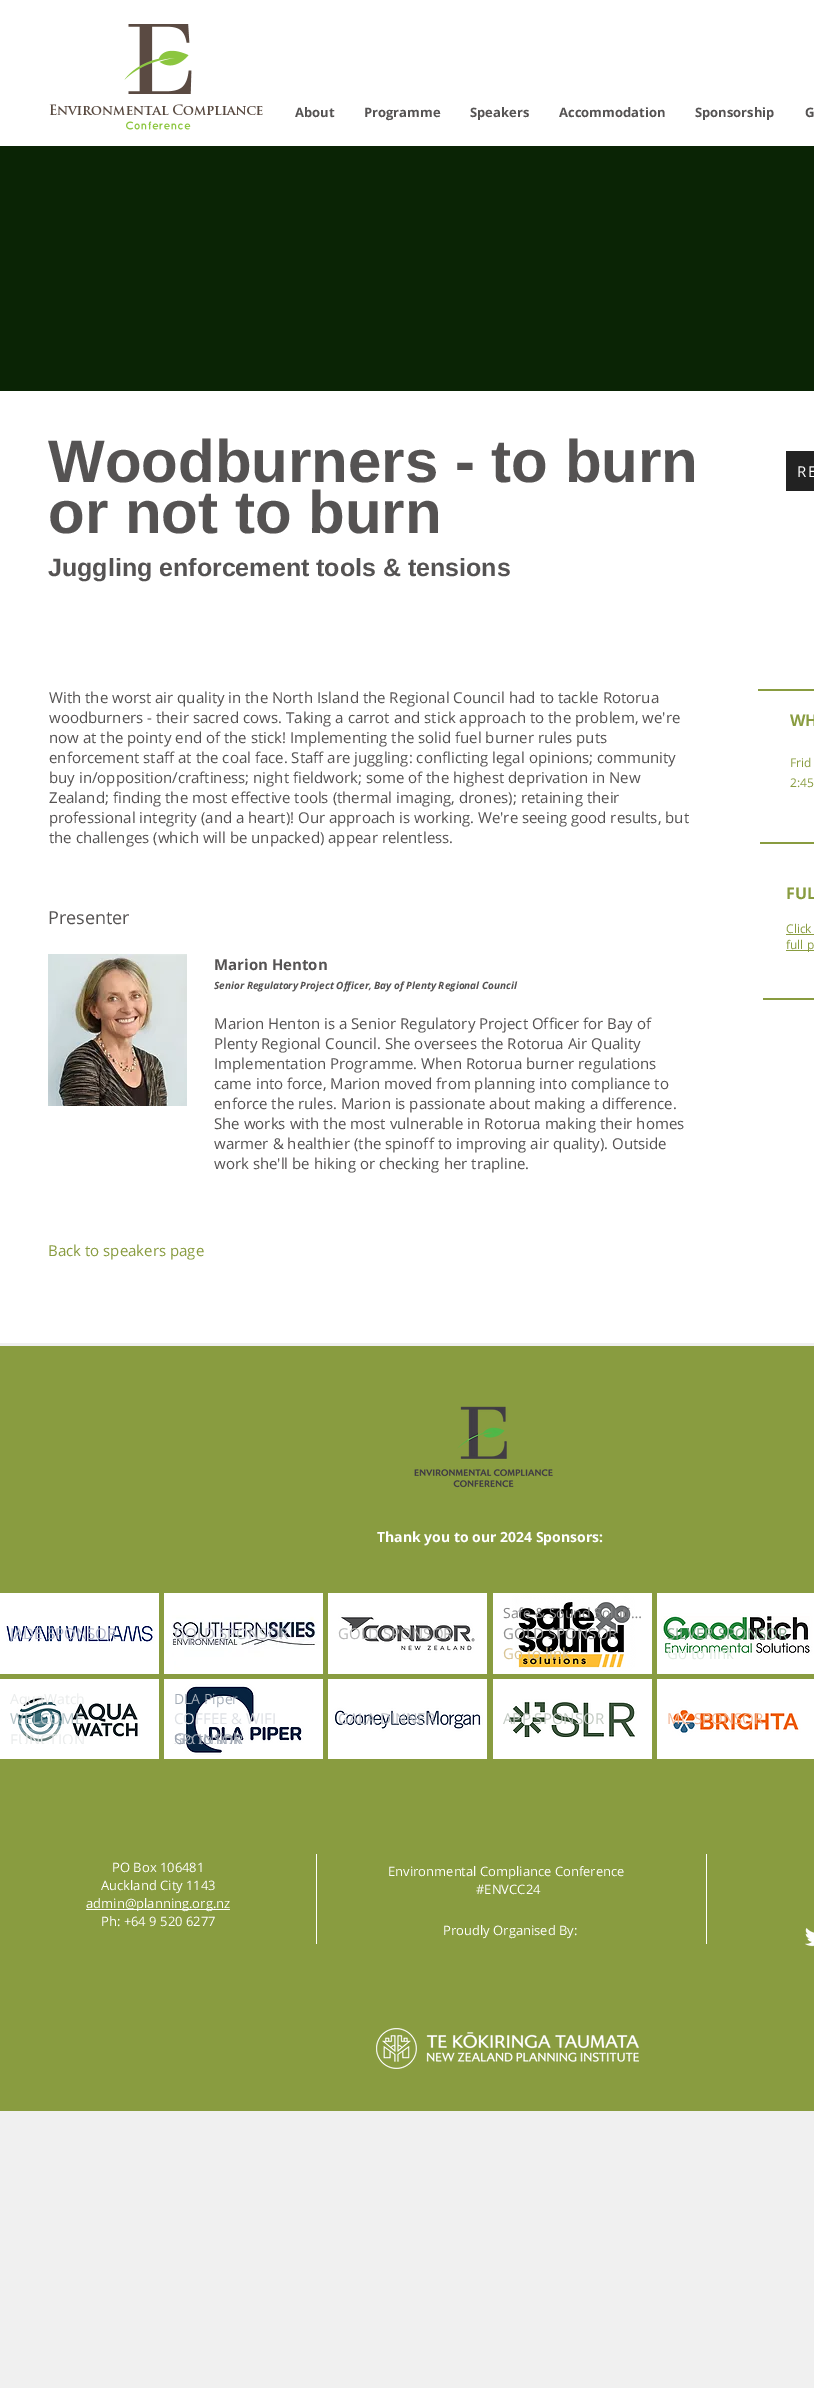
%!PS-Adobe-3.0
%%BoundingBox: 0 0 814 2388
%%LanguageLevel: 3
%%Pages: 1
%%EndComments
%%BeginProlog
/drawimage { 5 dict begin { /h /w /y /x /name } { exch def } forall
  gsave x y translate w h scale
  w h 8 [w 0 0 h 0 0] name (r) file false 3 colorimage grestore end } def
%%EndProlog
%%BeginSetup
<< /PageSize [814 2388] >> setpagedevice
%%EndSetup
%%Page: 1 1
0 2388 translate 1 -1 scale
4 setmiterlimit
0.941 setgray
0 0 814 2388 rectfill
1 setgray
0 0 814 146 rectfill
(images/1.raw) 49 24 214 106 drawimage
0.039 0.141 0.02 setrgbcolor
0 146 814 245 rectfill
1 setgray
0 391 814 952 rectfill
0.133 setgray
786 451 28 40 rectfill
0.537 0.612 0.251 setrgbcolor
758 689 56 2 rectfill
760 842 54 2 rectfill
786 934 28 1 rectfill
786 950 28 1 rectfill
(images/2.raw) 48 954 139 152 drawimage
763 998 51 2 rectfill
0 1346 814 765 rectfill
(images/3.raw) 414 1406 139 82 drawimage
(images/4.raw) 0 1593 159 81 drawimage
(images/5.raw) 164 1593 159 81 drawimage
(images/6.raw) 328 1593 159 81 drawimage
(images/7.raw) 493 1593 159 81 drawimage
(images/8.raw) 657 1593 157 81 drawimage
(images/9.raw) 0 1679 159 80 drawimage
(images/10.raw) 164 1679 159 80 drawimage
(images/11.raw) 328 1679 159 80 drawimage
(images/12.raw) 493 1679 159 80 drawimage
(images/13.raw) 657 1679 157 80 drawimage
1 setgray
86 1909 144 1 rectfill
316 1854 1 90 rectfill
706 1854 1 90 rectfill
(images/14.raw) 805 1928 9 19 drawimage
(images/15.raw) 376 2028 263 41 drawimage
/OpenSans-Bold [13 0 0 -13 0 0] selectfont
0.333 0.325 0.325 setrgbcolor
295 117 moveto (About) show
364 117 moveto (Programme) show
470 117 moveto (Speakers) show
559 117 moveto (Accommodation) show
695 117 moveto (Sponsorship) show
805 117 moveto (G) show
/LiberationSans-Bold [60 0 0 -60 0 0] selectfont
48 482 moveto (Woodburners - to burn) show
48 533 moveto (or not to burn) show
/LiberationSans-Bold [25 0 0 -25 0 0] selectfont
48 576 moveto (Juggling enforcement tools & tensions) show
/OpenSans-Regular [15 0 0 -15 0 0] selectfont
1 setgray
797 477 moveto 2 0 (RE) ashow
0.333 0.325 0.325 setrgbcolor
49 703 moveto (With the worst air quality in the North Island the Regional Council had to tackle Rotorua) show
49 723 moveto (woodburners - their sacred cows. Taking a carrot and stick approach to the problem, we're) show
49 743 moveto (now at the pointy end of the stick! Implementing the solid fuel burner rules puts) show
49 763 moveto (enforcement staff at the coal face. Staff are juggling: conflicting legal opinions; community) show
49 783 moveto (buy in/opposition/craftiness; night fieldwork; some of the highest deprivation in New) show
49 803 moveto (Zealand; finding the most effective tools \(thermal imaging, drones\); retaining their) show
49 823 moveto (professional integrity \(and a heart\)! Our approach is working. We're seeing good results, but) show
49 843 moveto (the challenges \(which will be unpacked\) appear relentless.) show
/OpenSans-Bold [16 0 0 -16 0 0] selectfont
0.537 0.612 0.251 setrgbcolor
790 726 moveto (WH) show
/OpenSans-Regular [12 0 0 -12 0 0] selectfont
790 767 moveto (Frid) show
790 787 moveto (2:45) show
/OpenSans-Regular [18 0 0 -18 0 0] selectfont
0.333 0.325 0.325 setrgbcolor
48 924 moveto (Presenter) show
/OpenSans-Bold [16 0 0 -16 0 0] selectfont
0.537 0.612 0.251 setrgbcolor
786 899 moveto (FUL) show
/OpenSans-Regular [12 0 0 -12 0 0] selectfont
786 933 moveto (Click) show
786 949 moveto (full p) show
/OpenSans-Bold [15 0 0 -15 0 0] selectfont
0.333 0.325 0.325 setrgbcolor
214 970 moveto (Marion Henton) show
/OpenSans-BoldItalic [10 0 0 -10 0 0] selectfont
214 989 moveto (Senior Regulatory Project Officer, Bay of Plenty Regional Council) show
/OpenSans-Regular [15 0 0 -15 0 0] selectfont
214 1029 moveto (Marion Henton is a Senior Regulatory Project Officer for Bay of) show
214 1049 moveto (Plenty Regional Council. She oversees the Rotorua Air Quality) show
214 1069 moveto (Implementation Programme. When Rotorua burner regulations) show
214 1089 moveto (came into force, Marion moved from planning into compliance to) show
214 1109 moveto (enforce the rules. Marion is passionate about making a difference.) show
214 1129 moveto (She works with the most vulnerable in Rotorua making their homes) show
214 1149 moveto (warmer & healthier \(the spinoff to improving air quality\). Outside) show
214 1169 moveto (work she'll be hiking or checking her trapline.) show
0.537 0.612 0.251 setrgbcolor
48 1256 moveto (Back to speakers page) show
/OpenSans-Bold [14 0 0 -14 0 0] selectfont
1 setgray
377 1542 moveto (Thank you to our 2024 Sponsors:) show
gsave
10 1623 139 21 rectclip
/OpenSans-Regular [15 0 0 -15 0 0] selectfont
0.698 0.718 0.796 setrgbcolor
10 1639 moveto (JADE SPONSOR) show
grestore
/OpenSans-Regular [15 0 0 -15 0 0] selectfont
0.741 0.753 0.78 setrgbcolor
174 1639 moveto (GOLD SPONSOR) show
0.718 setgray
338 1639 moveto (GOLD SPONSOR) show
/OpenSans-Regular [14 0 0 -14 0 0] selectfont
0.529 0.529 0.533 setrgbcolor
503 1618 moveto (Safe & Sound Soluti…) show
/OpenSans-Regular [15 0 0 -15 0 0] selectfont
0.561 setgray
503 1639 moveto (GOLD SPONSOR) show
0.847 0.769 0.584 setrgbcolor
503 1659 moveto (Go to link) show
0.533 0.659 0.561 setrgbcolor
667 1639 moveto (SILVER SPONSOR) show
0.886 0.929 0.894 setrgbcolor
667 1659 moveto (Go to link) show
/OpenSans-Regular [14 0 0 -14 0 0] selectfont
0.918 0.925 0.925 setrgbcolor
10 1704 moveto (AquaWatch) show
/OpenSans-Regular [15 0 0 -15 0 0] selectfont
0.702 0.761 0.776 setrgbcolor
10 1724 moveto (WELCOME) show
gsave
10 1708 139 36 rectclip
0.918 0.925 0.925 setrgbcolor
10 1745 moveto (FUNCTION) show
grestore
/OpenSans-Regular [14 0 0 -14 0 0] selectfont
0.643 0.678 0.722 setrgbcolor
174 1704 moveto (DLA Piper) show
/OpenSans-Regular [15 0 0 -15 0 0] selectfont
0.871 0.882 0.898 setrgbcolor
174 1724 moveto (COFFEE & WIFI) show
gsave
174 1708 139 36 rectclip
0.643 0.678 0.722 setrgbcolor
174 1745 moveto (SPONSOR) show
grestore
0.616 0.643 0.69 setrgbcolor
174 1744 moveto (Go to link) show
0.741 0.753 0.78 setrgbcolor
338 1724 moveto (GALA DINNER) show
0.765 0.792 0.765 setrgbcolor
503 1724 moveto (APP SPONSOR) show
0.953 0.714 0.584 setrgbcolor
667 1724 moveto (MC SPONSOR) show
/OpenSans-Regular [13 0 0 -13 0 0] selectfont
1 setgray
112 1872 moveto (PO Box 106481) show
101 1890 moveto (Auckland City 1143) show
86 1908 moveto (admin@planning.org.nz) show
101 1926 moveto (Ph: +64 9 520 6277) show
388 1876 moveto (Environmental Compliance Conference) show
476 1894 moveto (#ENVCC24) show
443 1935 moveto (Proudly Organised By:) show
showpage
%%EOF
